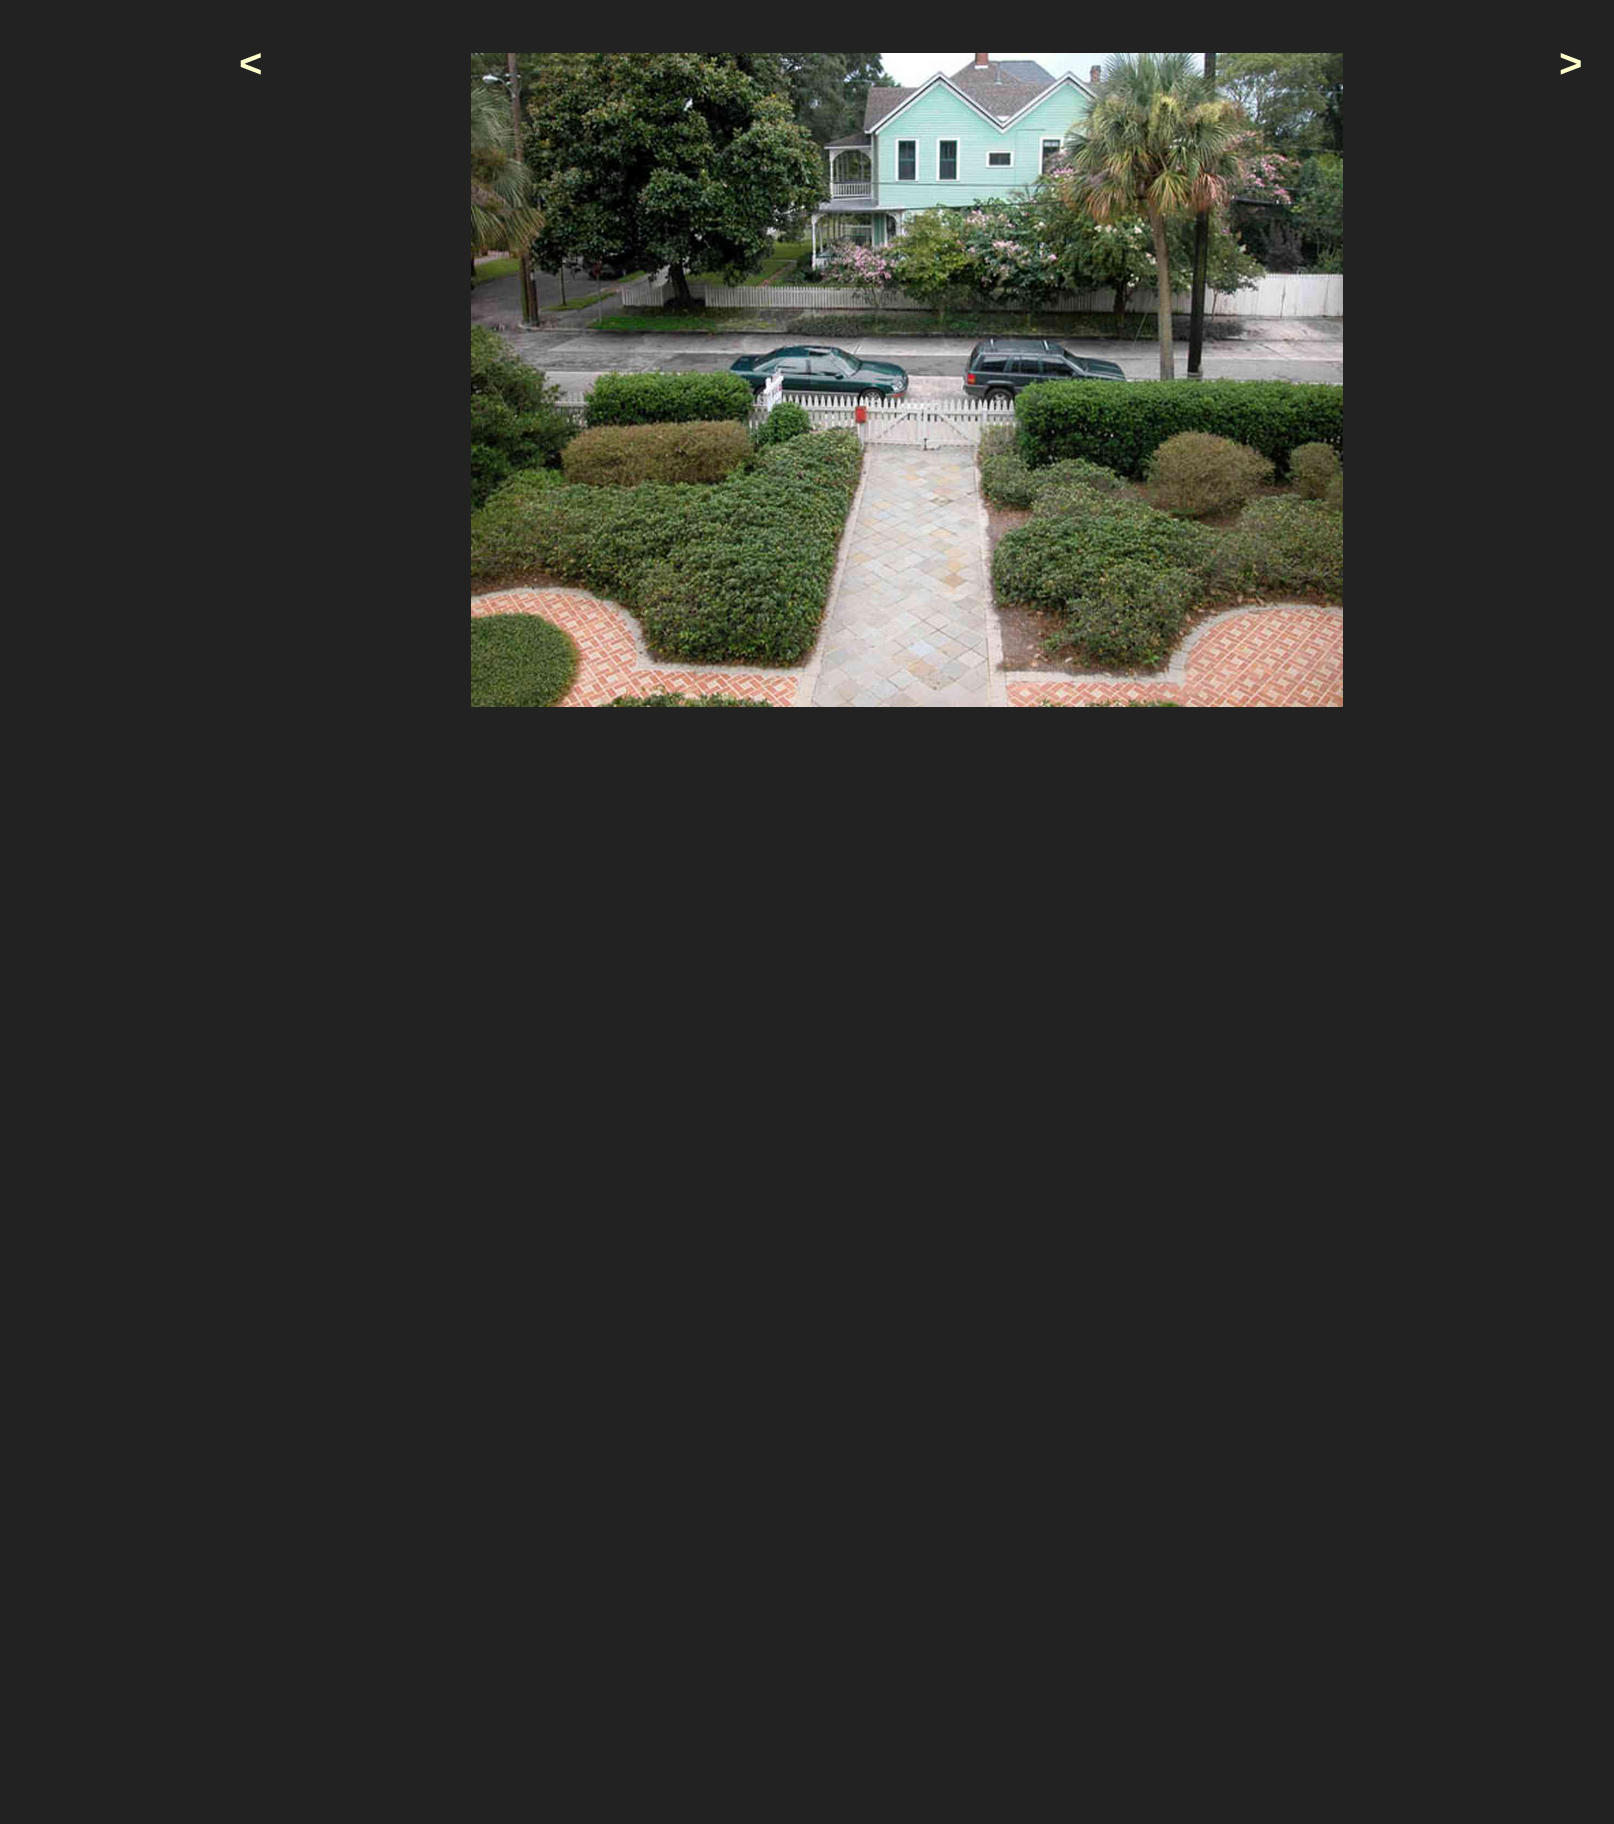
%!PS-Adobe-3.0
%%BoundingBox: 0 0 1614 1824
%%LanguageLevel: 3
%%Pages: 1
%%EndComments
%%BeginProlog
/drawimage { 5 dict begin { /h /w /y /x /name } { exch def } forall
  gsave x y translate w h scale
  w h 8 [w 0 0 h 0 0] name (r) file false 3 colorimage grestore end } def
%%EndProlog
%%BeginSetup
<< /PageSize [1614 1824] >> setpagedevice
%%EndSetup
%%Page: 1 1
0 1824 translate 1 -1 scale
4 setmiterlimit
0.133 setgray
0 0 1614 1824 rectfill
(images/1.raw) 471 53 872 654 drawimage
/LiberationSans-Bold [40 0 0 -40 0 0] selectfont
1 1 0.8 setrgbcolor
239 77 moveto (<) show
1559 77 moveto (>) show
showpage
%%EOF
